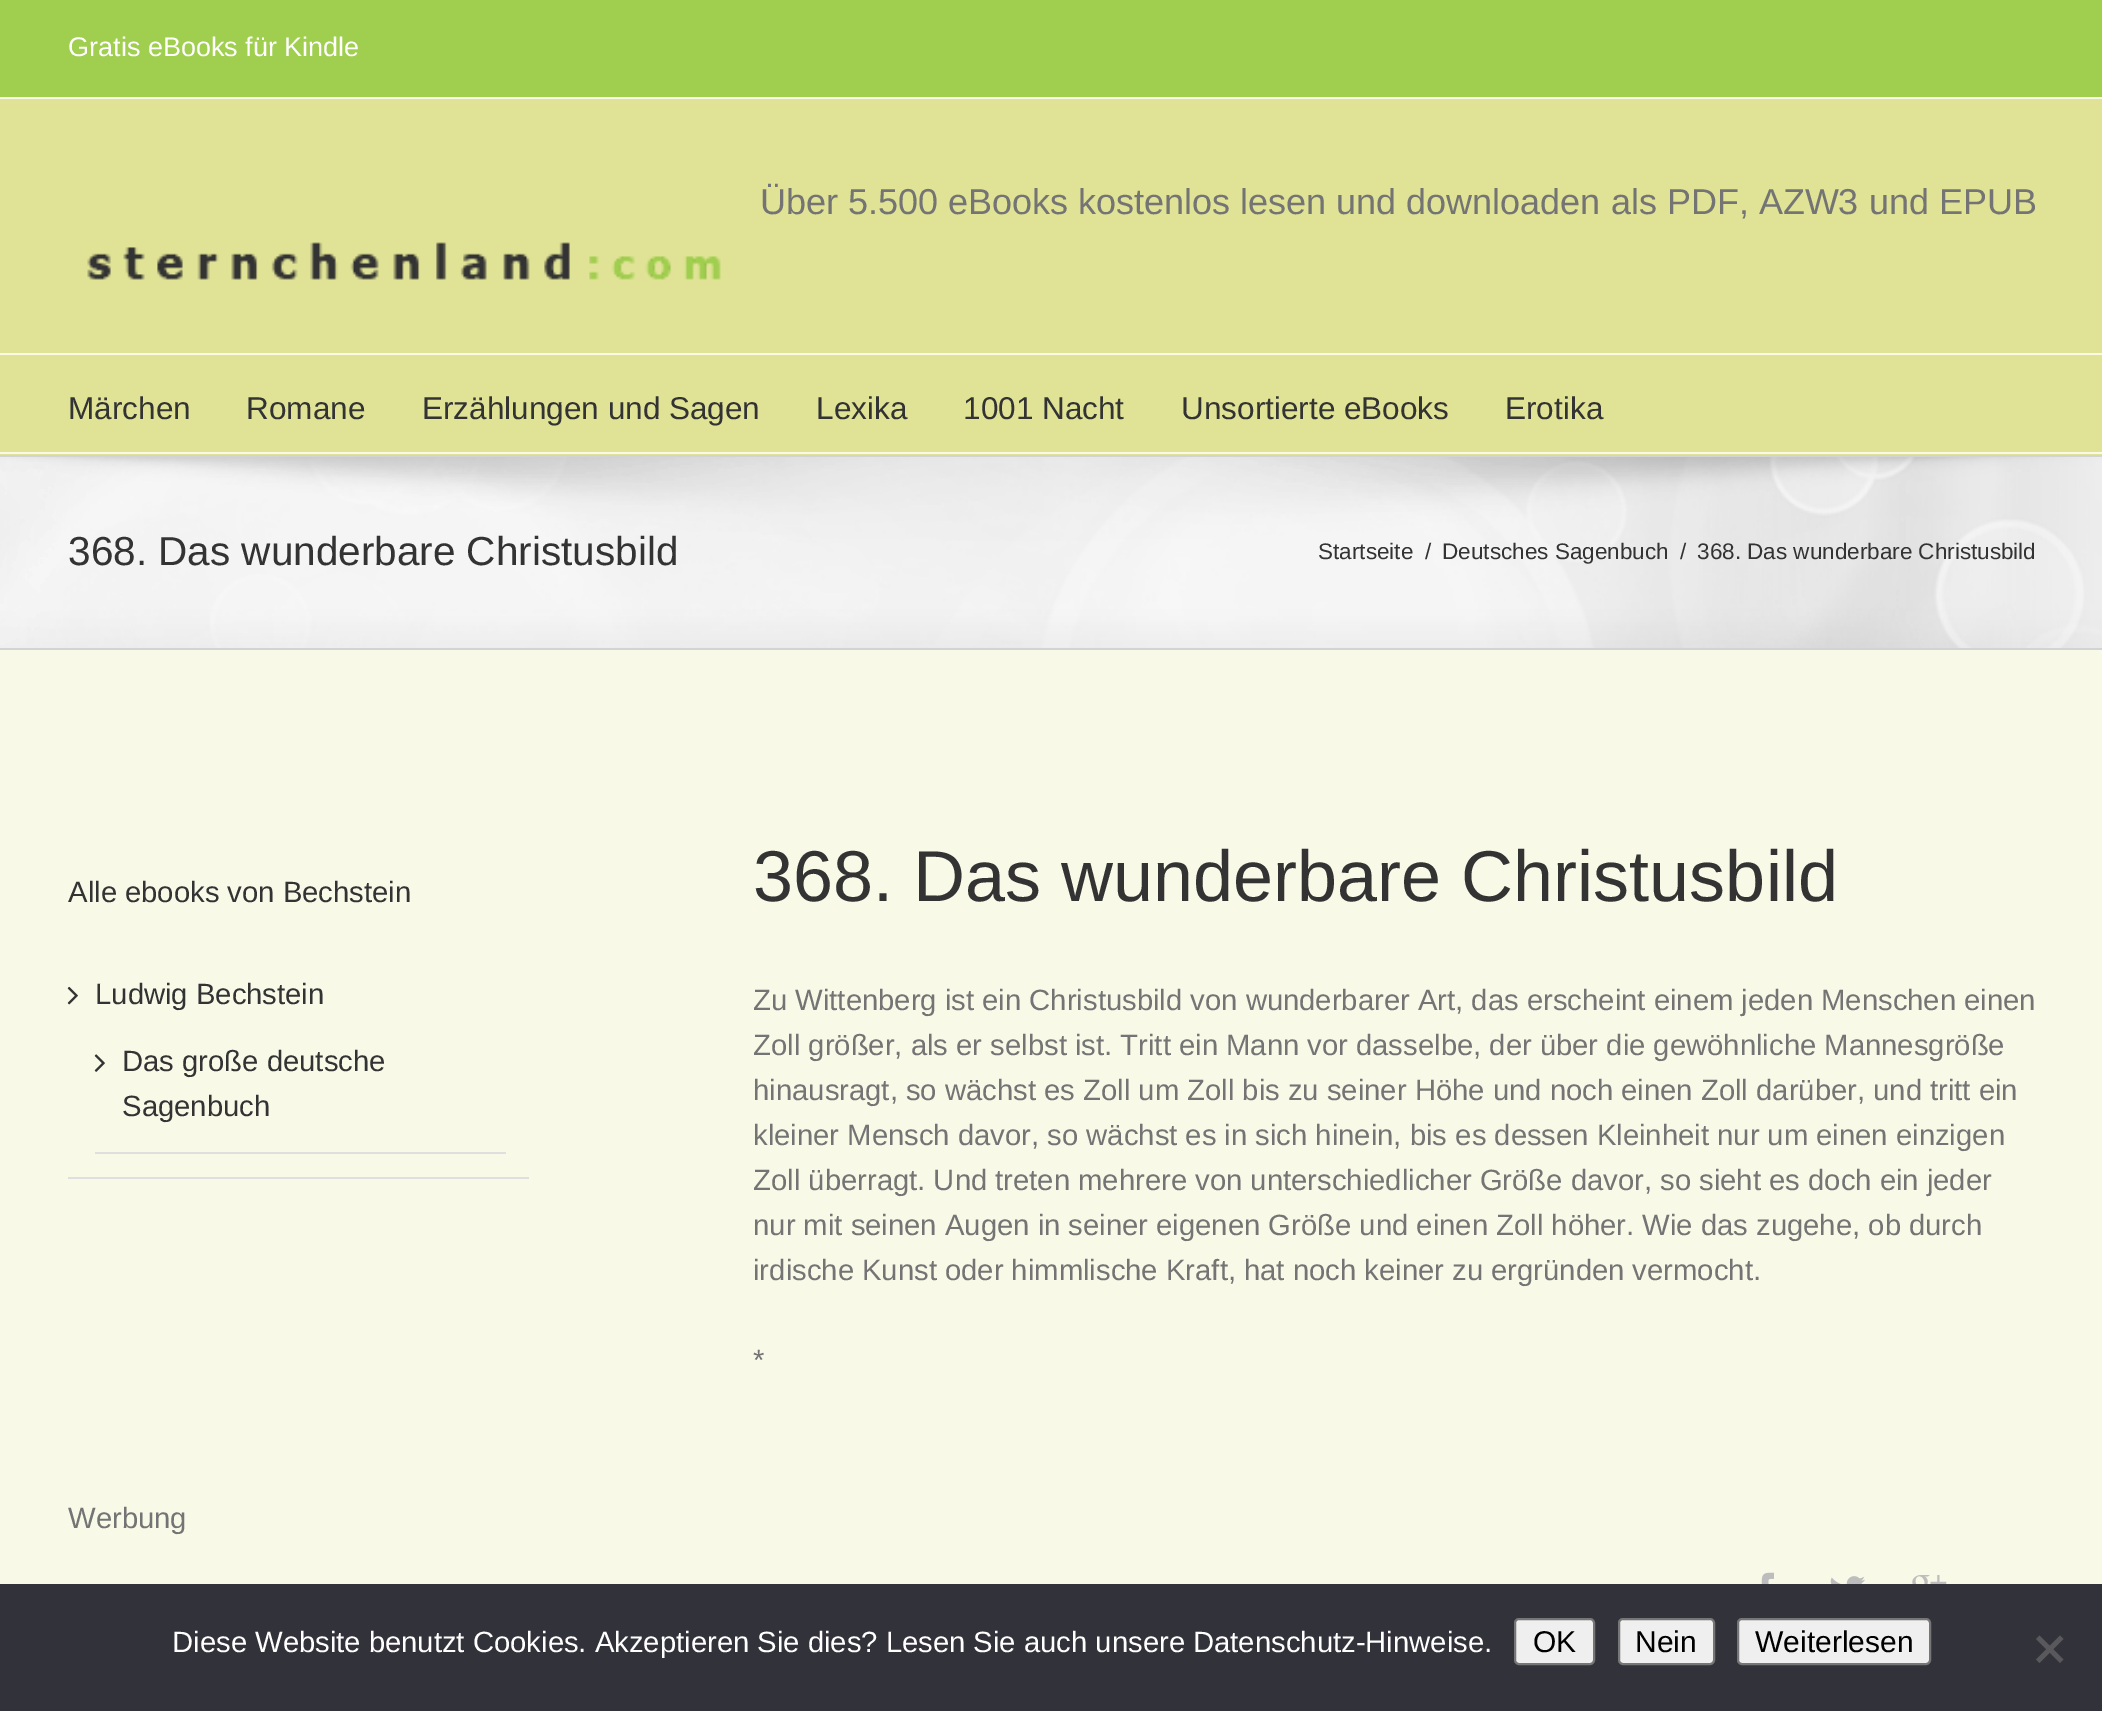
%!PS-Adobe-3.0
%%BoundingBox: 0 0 2102 1711
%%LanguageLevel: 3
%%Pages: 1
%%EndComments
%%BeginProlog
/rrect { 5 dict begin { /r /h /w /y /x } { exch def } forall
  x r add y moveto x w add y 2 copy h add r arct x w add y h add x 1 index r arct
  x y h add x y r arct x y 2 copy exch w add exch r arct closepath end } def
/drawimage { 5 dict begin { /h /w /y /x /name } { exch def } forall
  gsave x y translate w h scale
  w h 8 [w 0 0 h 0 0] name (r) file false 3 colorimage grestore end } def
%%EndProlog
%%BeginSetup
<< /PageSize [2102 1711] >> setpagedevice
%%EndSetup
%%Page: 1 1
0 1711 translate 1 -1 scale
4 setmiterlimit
0.965 setgray
0 0 2102 1711 rectfill
0.627 0.808 0.306 setrgbcolor
0 0 2102 97 rectfill
0.973 0.976 0.906 setrgbcolor
0 97 2102 2 rectfill
0.878 0.89 0.588 setrgbcolor
0 99 2102 356 rectfill
0.973 0.976 0.906 setrgbcolor
0 353 2102 2 rectfill
(images/1.raw) 87 242 634 38 drawimage
0 452 2102 2 rectfill
(images/2.raw) 0 457 2102 191 drawimage
0.824 0.827 0.831 setrgbcolor
0 455 2102 2 rectfill
0 648 2102 2 rectfill
0.973 0.976 0.906 setrgbcolor
0 650 2102 934 rectfill
0.878 0.871 0.871 setrgbcolor
68 1177 461 2 rectfill
(images/3.raw) 67 986 11 19 drawimage
95 1152 411 2 rectfill
(images/4.raw) 94 1054 11 18 drawimage
(images/5.raw) 1761 1572 13 12 drawimage
(images/6.raw) 1830 1576 35 8 drawimage
(images/7.raw) 1912 1575 35 9 drawimage
0.196 0.196 0.227 setrgbcolor
0 1584 2102 127 rectfill
0.937 setgray
1515 1619 79 45 4 rrect gsave fill grestore
0.463 setgray
2 setlinewidth
stroke
0.937 setgray
1619 1619 95 45 4 rrect gsave fill grestore
0.463 setgray
stroke
0.937 setgray
1738 1619 192 45 4 rrect gsave fill grestore
0.463 setgray
stroke
0.349 0.349 0.365 setrgbcolor
newpath 2060 1635.5 moveto 2063.5 1639 lineto 2039.5 1663 lineto 2036 1659.5 lineto closepath fill
newpath 2036 1639 moveto 2039.5 1635.5 lineto 2063.5 1659.5 lineto 2060 1663 lineto closepath fill
/LiberationSans-Regular [27 0 0 -27 0 0] selectfont
1 setgray
68 56 moveto (Gratis eBooks für Kindle) show
/LiberationSans-Regular [36 0 0 -36 0 0] selectfont
0.455 setgray
760 214 moveto (Über 5.500 eBooks kostenlos lesen und downloaden als PDF, AZW3 und EPUB) show
/LiberationSans-Regular [31.5 0 0 -31.5 0 0] selectfont
0.2 setgray
68 419 moveto (Märchen) show
246 419 moveto (Romane) show
422 419 moveto (Erzählungen und Sagen) show
816 419 moveto (Lexika) show
963 419 moveto (1001 Nacht) show
1181 419 moveto (Unsortierte eBooks) show
1505 419 moveto (Erotika) show
/LiberationSans-Regular [40.5 0 0 -40.5 0 0] selectfont
68 565 moveto (368. Das wunderbare Christusbild) show
/LiberationSans-Regular [22.5 0 0 -22.5 0 0] selectfont
1318 559 moveto (Startseite) show
1425 559 moveto (/) show
1442 559 moveto (Deutsches Sagenbuch) show
1680 559 moveto (/) show
1697 559 moveto (368. Das wunderbare Christusbild) show
/LiberationSans-Regular [29.25 0 0 -29.25 0 0] selectfont
68 902 moveto (Alle ebooks von Bechstein) show
95 1004 moveto (Ludwig Bechstein) show
122 1071 moveto (Das große deutsche) show
122 1116 moveto (Sagenbuch) show
0.455 setgray
68 1528 moveto (Werbung) show
/LiberationSans-Regular [72 0 0 -72 0 0] selectfont
0.2 setgray
753 901 moveto (368. Das wunderbare Christusbild) show
/LiberationSans-Regular [29.25 0 0 -29.25 0 0] selectfont
0.455 setgray
753 1010 moveto (Zu Wittenberg ist ein Christusbild von wunderbarer Art, das erscheint einem jeden Menschen einen) show
753 1055 moveto (Zoll größer, als er selbst ist. Tritt ein Mann vor dasselbe, der über die gewöhnliche Mannesgröße) show
753 1100 moveto (hinausragt, so wächst es Zoll um Zoll bis zu seiner Höhe und noch einen Zoll darüber, und tritt ein) show
753 1145 moveto (kleiner Mensch davor, so wächst es in sich hinein, bis es dessen Kleinheit nur um einen einzigen) show
753 1190 moveto (Zoll überragt. Und treten mehrere von unterschiedlicher Größe davor, so sieht es doch ein jeder) show
753 1235 moveto (nur mit seinen Augen in seiner eigenen Größe und einen Zoll höher. Wie das zugehe, ob durch) show
753 1280 moveto (irdische Kunst oder himmlische Kraft, hat noch keiner zu ergründen vermocht.) show
753 1370 moveto (*) show
1 setgray
172 1652 moveto (Diese Website benutzt Cookies. Akzeptieren Sie dies? Lesen Sie auch unsere Datenschutz-Hinweise.) show
/LiberationSans-Regular [30 0 0 -30 0 0] selectfont
0 setgray
1533 1652 moveto (OK) show
1635 1652 moveto (Nein) show
1755 1652 moveto (Weiterlesen) show
showpage
%%EOF
